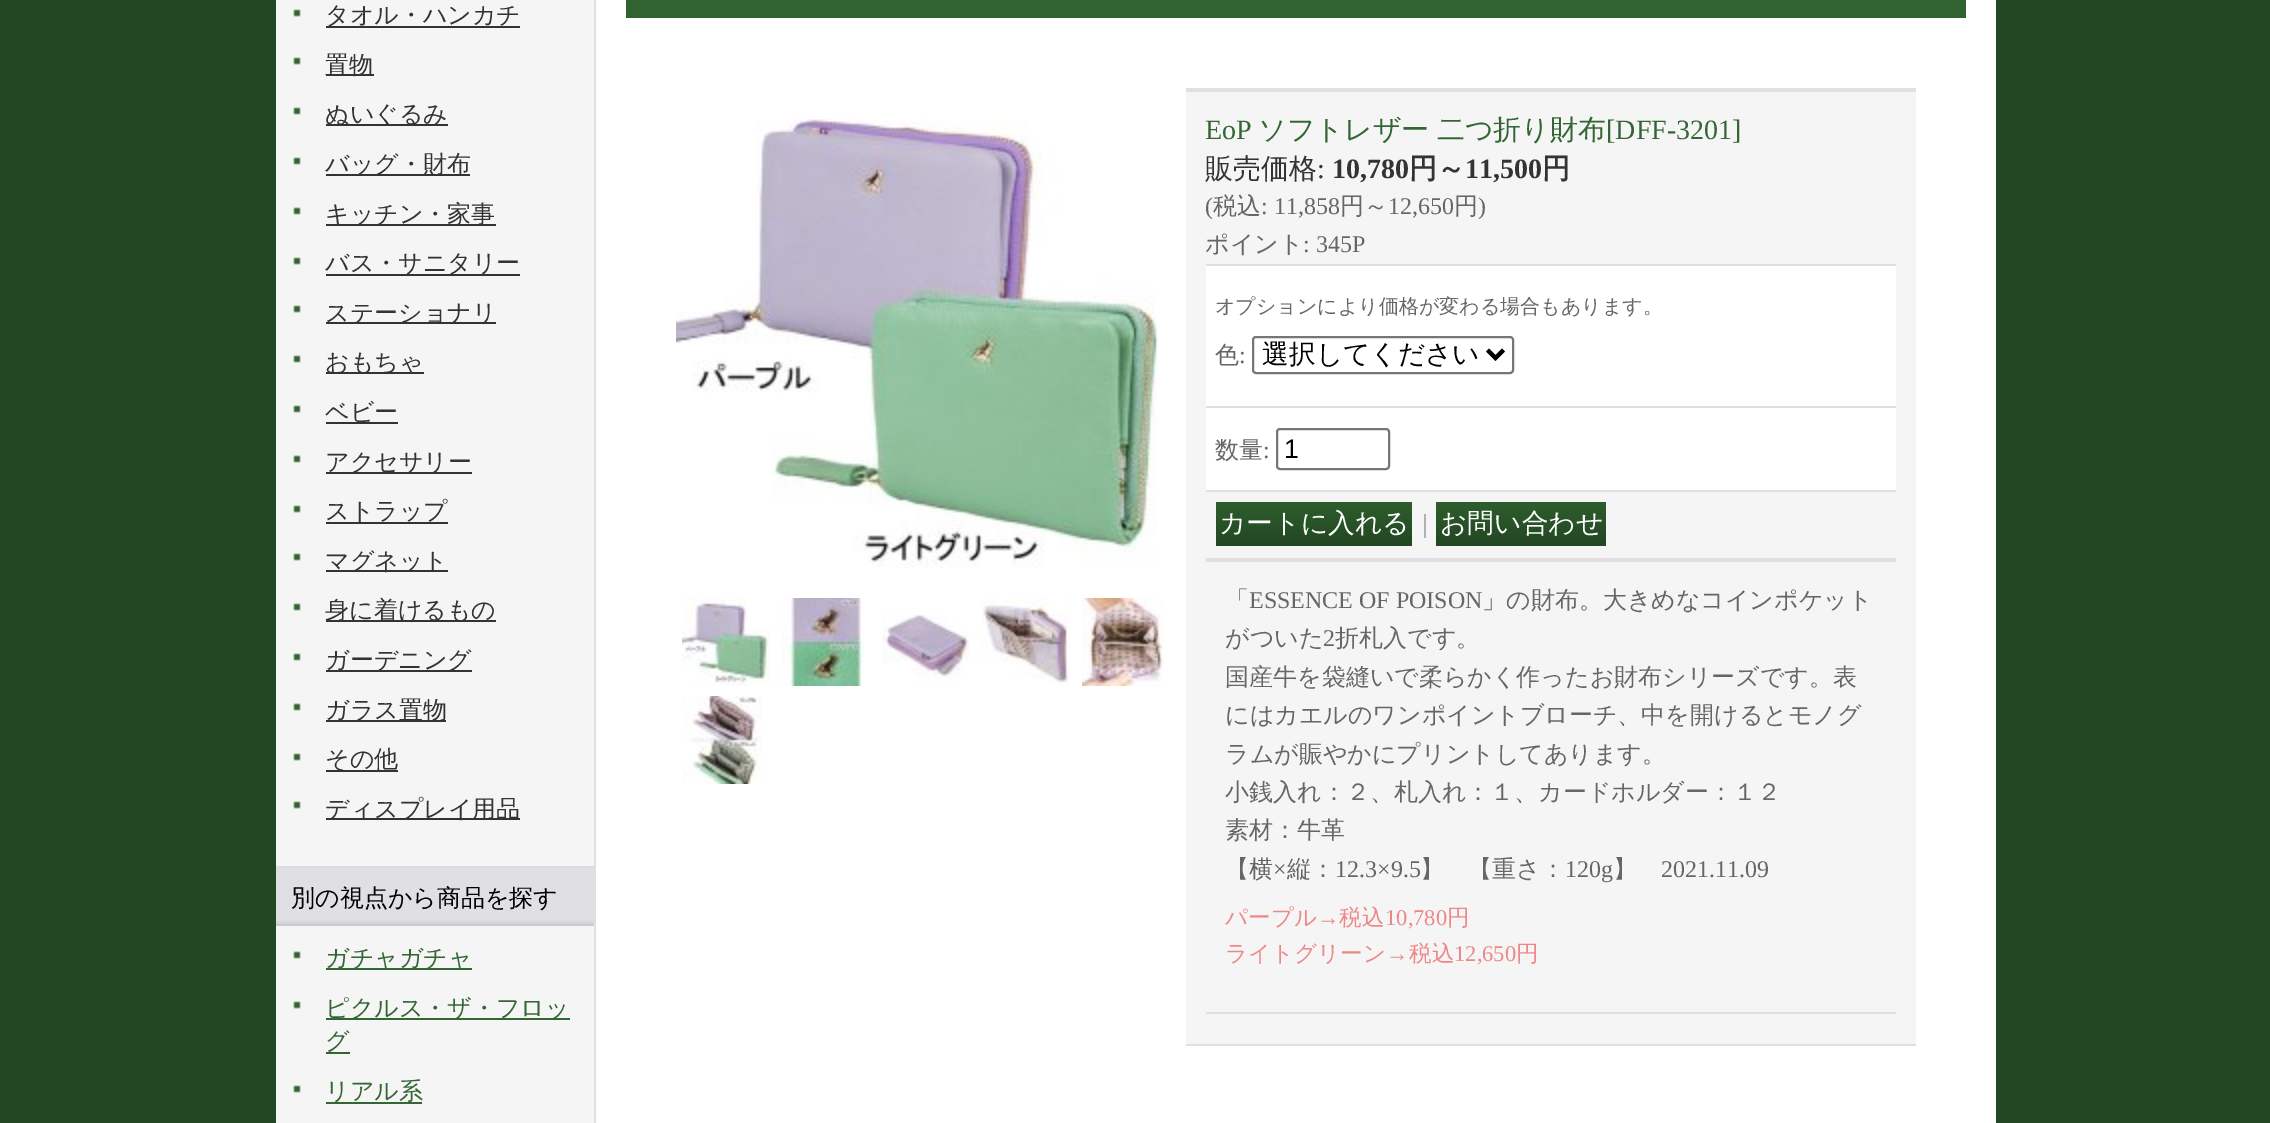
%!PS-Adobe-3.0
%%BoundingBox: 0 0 2270 1123
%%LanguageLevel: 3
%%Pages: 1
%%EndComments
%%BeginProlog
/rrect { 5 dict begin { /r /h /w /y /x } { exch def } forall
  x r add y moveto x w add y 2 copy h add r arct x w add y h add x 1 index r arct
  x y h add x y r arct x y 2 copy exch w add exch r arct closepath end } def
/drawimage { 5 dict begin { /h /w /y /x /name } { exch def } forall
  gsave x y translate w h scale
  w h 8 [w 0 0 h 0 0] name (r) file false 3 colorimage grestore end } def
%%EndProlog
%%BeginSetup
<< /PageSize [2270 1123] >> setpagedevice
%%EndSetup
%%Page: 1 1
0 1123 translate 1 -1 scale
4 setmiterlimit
0.137 0.278 0.137 setrgbcolor
0 0 2270 1123 rectfill
1 setgray
596 0 1400 1123 rectfill
0.961 setgray
276 0 318 1123 rectfill
0.878 0.875 0.89 setrgbcolor
594 0 2 1123 rectfill
(images/1.raw) 293 9 8 8 drawimage
0.2 setgray
326 26 194 2 rectfill
(images/1.raw) 293 57 8 8 drawimage
326 74 48 2 rectfill
(images/1.raw) 293 107 8 8 drawimage
326 124 122 2 rectfill
(images/1.raw) 293 157 8 8 drawimage
326 174 144 2 rectfill
(images/1.raw) 293 207 8 8 drawimage
326 224 170 2 rectfill
(images/1.raw) 293 257 8 8 drawimage
326 274 194 2 rectfill
(images/1.raw) 293 305 8 8 drawimage
326 322 170 2 rectfill
(images/1.raw) 293 355 8 8 drawimage
326 372 98 2 rectfill
(images/1.raw) 293 405 8 8 drawimage
326 422 72 2 rectfill
(images/1.raw) 293 455 8 8 drawimage
326 472 146 2 rectfill
(images/1.raw) 293 505 8 8 drawimage
326 522 122 2 rectfill
(images/1.raw) 293 553 8 8 drawimage
326 570 122 2 rectfill
(images/1.raw) 293 603 8 8 drawimage
326 620 170 2 rectfill
(images/1.raw) 293 653 8 8 drawimage
326 670 146 2 rectfill
(images/1.raw) 293 703 8 8 drawimage
326 720 120 2 rectfill
(images/1.raw) 293 753 8 8 drawimage
326 770 72 2 rectfill
(images/1.raw) 293 801 8 8 drawimage
326 818 194 2 rectfill
(images/2.raw) 276 866 318 60 drawimage
(images/1.raw) 293 951 8 8 drawimage
0.2 0.4 0.2 setrgbcolor
326 968 146 2 rectfill
(images/1.raw) 293 1001 8 8 drawimage
326 1018 244 2 rectfill
326 1052 24 2 rectfill
(images/1.raw) 293 1085 8 8 drawimage
326 1102 96 2 rectfill
0.188 0.388 0.188 setrgbcolor
626 0 1340 18 rectfill
(images/3.raw) 676 119 483 449 drawimage
(images/4.raw) 682 598 88 88 drawimage
(images/5.raw) 782 598 82 88 drawimage
(images/6.raw) 882 614 88 69 drawimage
(images/7.raw) 982 598 88 88 drawimage
(images/8.raw) 1082 598 83 88 drawimage
(images/9.raw) 682 696 80 88 drawimage
0.961 setgray
1186 92 730 952 rectfill
0.878 0.875 0.89 setrgbcolor
1186 88 730 4 rectfill
1186 1044 730 2 rectfill
1 setgray
1206 266 690 140 rectfill
0.878 0.875 0.89 setrgbcolor
1206 264 690 2 rectfill
0.463 setgray
2 setlinewidth
1253 337 260 36 3 rrect stroke
0 setgray
4 setlinewidth
newpath 1487.5 350 moveto 1495.5 358 lineto 1503.5 350 lineto stroke
1 setgray
1206 408 690 82 rectfill
0.878 0.875 0.89 setrgbcolor
1206 406 690 2 rectfill
0.463 setgray
2 setlinewidth
1277 429 112 40 3 rrect stroke
0.878 0.875 0.89 setrgbcolor
1206 490 690 2 rectfill
(images/10.raw) 1216 502 196 44 drawimage
(images/11.raw) 1436 502 170 44 drawimage
1206 558 690 4 rectfill
1206 1012 690 2 rectfill
/WenQuanYiZenHei-Medium [24 0 0 -24 0 0] selectfont
0.2 setgray
325 23 moveto (タオル・ハンカチ) show
325 73 moveto (置物) show
325 122 moveto (ぬいぐるみ) show
325 172 moveto (バッグ・財布) show
325 222 moveto (キッチン・家事) show
325 271 moveto (バス・サニタリー) show
325 321 moveto (ステーショナリ) show
325 370 moveto (おもちゃ) show
325 420 moveto (ベビー) show
325 470 moveto (アクセサリー) show
325 519 moveto (ストラップ) show
325 569 moveto (マグネット) show
325 618 moveto (身に着けるもの) show
325 668 moveto (ガーデニング) show
325 718 moveto (ガラス置物) show
325 767 moveto (その他) show
325 817 moveto (ディスプレイ用品) show
0 setgray
291 906 moveto (別の視点から商品を探す) show
0.2 0.4 0.2 setrgbcolor
325 966 moveto (ガチャガチャ) show
325 1016 moveto (ピクルス・ザ・フロッ) show
325 1049 moveto (グ) show
325 1099 moveto (リアル系) show
/LiberationSerif-Regular [28 0 0 -28 0 0] selectfont
1205 139 moveto (EoP) show
/WenQuanYiZenHei-Medium [28 0 0 -28 0 0] selectfont
1258 139 moveto -1 0 32 (ソフトレザー 二つ折り財布) widthshow
/LiberationSerif-Regular [28 0 0 -28 0 0] selectfont
1606 139 moveto ([DFF-3201]) show
/WenQuanYiZenHei-Medium [28 0 0 -28 0 0] selectfont
0.2 setgray
1205 178 moveto (販売価格) show
/LiberationSerif-Regular [28 0 0 -28 0 0] selectfont
1317 178 moveto (:) show
/LiberationSerif-Bold [28 0 0 -28 0 0] selectfont
1332 178 moveto (10,780) show
/WenQuanYiZenHei-Bold [28 0 0 -28 0 0] selectfont
1409 178 moveto (円～) show
/LiberationSerif-Bold [28 0 0 -28 0 0] selectfont
1465 178 moveto (11,500) show
/WenQuanYiZenHei-Bold [28 0 0 -28 0 0] selectfont
1542 178 moveto (円) show
/LiberationSerif-Regular [24 0 0 -24 0 0] selectfont
0.4 setgray
1205 214 moveto (\() show
/WenQuanYiZenHei-Medium [24 0 0 -24 0 0] selectfont
1213 214 moveto (税込) show
/LiberationSerif-Regular [24 0 0 -24 0 0] selectfont
1261 214 moveto (: 11,858) show
/WenQuanYiZenHei-Medium [24 0 0 -24 0 0] selectfont
1340 214 moveto (円～) show
/LiberationSerif-Regular [24 0 0 -24 0 0] selectfont
1388 214 moveto (12,650) show
/WenQuanYiZenHei-Medium [24 0 0 -24 0 0] selectfont
1454 214 moveto (円) show
/LiberationSerif-Regular [24 0 0 -24 0 0] selectfont
1478 214 moveto (\)) show
/WenQuanYiZenHei-Medium [24 0 0 -24 0 0] selectfont
1205 252 moveto (ポイント) show
/LiberationSerif-Regular [24 0 0 -24 0 0] selectfont
1303 252 moveto (: 345P) show
/WenQuanYiZenHei-Medium [20 0 0 -20 0 0] selectfont
1215 313 moveto (オプションにより価格が変わる場合もあります。) show
/WenQuanYiZenHei-Medium [24 0 0 -24 0 0] selectfont
1215 363 moveto (色) show
/LiberationSerif-Regular [24 0 0 -24 0 0] selectfont
1239 363 moveto (:) show
/WenQuanYiZenHei-Medium [26.75 0 0 -26.75 0 0] selectfont
0 setgray
1262 363 moveto (選択してください) show
/WenQuanYiZenHei-Medium [24 0 0 -24 0 0] selectfont
0.4 setgray
1215 458 moveto (数量) show
/LiberationSerif-Regular [24 0 0 -24 0 0] selectfont
1263 458 moveto (:) show
/LiberationSans-Regular [26.75 0 0 -26.75 0 0] selectfont
0 setgray
1284 458 moveto (1) show
/WenQuanYiZenHei-Medium [26.75 0 0 -26.75 0 0] selectfont
1 setgray
1219 532 moveto (カートに入れる) show
/WenQuanYiZenHei-Medium [24 0 0 -24 0 0] selectfont
0.6 setgray
1413 532 moveto (｜) show
/WenQuanYiZenHei-Medium [26.75 0 0 -26.75 0 0] selectfont
1 setgray
1440 532 moveto (お問い合わせ) show
/WenQuanYiZenHei-Medium [24 0 0 -24 0 0] selectfont
0.4 setgray
1225 608 moveto (「) show
/LiberationSerif-Regular [24 0 0 -24 0 0] selectfont
1249 608 moveto (ESSENCE OF POISON) show
/WenQuanYiZenHei-Medium [24 0 0 -24 0 0] selectfont
1482 608 moveto (」の財布。大きめなコインポケット) show
1225 646 moveto (がついた) show
/LiberationSerif-Regular [24 0 0 -24 0 0] selectfont
1323 646 moveto (2) show
/WenQuanYiZenHei-Medium [24 0 0 -24 0 0] selectfont
1335 646 moveto (折札入です。) show
1225 685 moveto (国産牛を袋縫いで柔らかく作ったお財布シリーズです。表) show
1225 723 moveto (にはカエルのワンポイントブローチ、中を開けるとモノグ) show
1225 762 moveto (ラムが賑やかにプリントしてあります。) show
1225 800 moveto (小銭入れ：２、札入れ：１、カードホルダー：１２) show
1225 838 moveto (素材：牛革) show
1225 877 moveto (【横) show
/LiberationSerif-Regular [24 0 0 -24 0 0] selectfont
1273 877 moveto (×) show
/WenQuanYiZenHei-Medium [24 0 0 -24 0 0] selectfont
1287 877 moveto (縦：) show
/LiberationSerif-Regular [24 0 0 -24 0 0] selectfont
1335 877 moveto (12.3×9.5) show
/WenQuanYiZenHei-Medium [24 0 0 -24 0 0] selectfont
1420 877 moveto (】　【重さ：) show
/LiberationSerif-Regular [24 0 0 -24 0 0] selectfont
1565 877 moveto (120g) show
/WenQuanYiZenHei-Medium [24 0 0 -24 0 0] selectfont
1613 877 moveto (】) show
/LiberationSerif-Regular [24 0 0 -24 0 0] selectfont
1661 877 moveto (2021.11.09) show
/WenQuanYiZenHei-Medium [22.5 0 0 -22.5 0 0] selectfont
0.933 0.533 0.533 setrgbcolor
1225 925 moveto (パープル) show
/LiberationSerif-Regular [22.5 0 0 -22.5 0 0] selectfont
1317 925 moveto (→) show
/WenQuanYiZenHei-Medium [22.5 0 0 -22.5 0 0] selectfont
1339 925 moveto (税込) show
/LiberationSerif-Regular [22.5 0 0 -22.5 0 0] selectfont
1385 925 moveto (10,780) show
/WenQuanYiZenHei-Medium [22.5 0 0 -22.5 0 0] selectfont
1447 925 moveto (円) show
1225 961 moveto (ライトグリーン) show
/LiberationSerif-Regular [22.5 0 0 -22.5 0 0] selectfont
1386 961 moveto (→) show
/WenQuanYiZenHei-Medium [22.5 0 0 -22.5 0 0] selectfont
1409 961 moveto (税込) show
/LiberationSerif-Regular [22.5 0 0 -22.5 0 0] selectfont
1454 961 moveto (12,650) show
/WenQuanYiZenHei-Medium [22.5 0 0 -22.5 0 0] selectfont
1516 961 moveto (円) show
showpage
%%EOF
